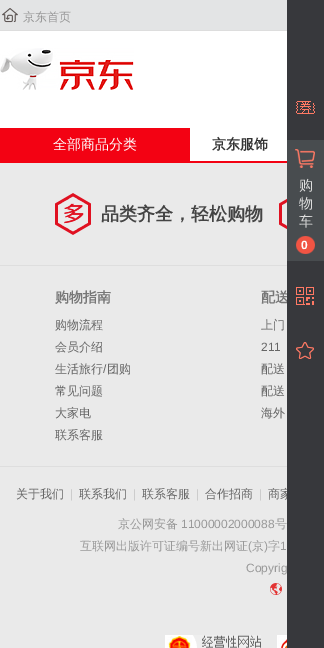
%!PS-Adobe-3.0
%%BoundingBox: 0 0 324 648
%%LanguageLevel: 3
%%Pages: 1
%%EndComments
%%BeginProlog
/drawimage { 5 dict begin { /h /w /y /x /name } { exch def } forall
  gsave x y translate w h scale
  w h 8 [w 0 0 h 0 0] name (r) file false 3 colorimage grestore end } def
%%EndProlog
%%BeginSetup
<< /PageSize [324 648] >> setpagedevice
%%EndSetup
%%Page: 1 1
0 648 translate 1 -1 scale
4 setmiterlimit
1 setgray
0 0 324 648 rectfill
0.89 0.894 0.898 setrgbcolor
0 0 287 30 rectfill
0.867 setgray
0 30 287 1 rectfill
(images/1.raw) 2 8 16 15 drawimage
(images/2.raw) 0 48 134 42 drawimage
0.953 0.008 0.075 setrgbcolor
0 161 287 2 rectfill
0 128 190 33 rectfill
0.918 setgray
0 163 287 485 rectfill
(images/3.raw) 55 193 36 42 drawimage
(images/4.raw) 279 198 8 32 drawimage
0.871 setgray
0 265 287 1 rectfill
0 466 287 1 rectfill
(images/5.raw) 270 583 12 12 drawimage
(images/6.raw) 165 635 96 13 drawimage
(images/7.raw) 277 635 10 13 drawimage
/WenQuanYiZenHei-Medium [12 0 0 -12 0 0] selectfont
0.6 setgray
23 21 moveto (京东首页) show
/WenQuanYiZenHei-Medium [14 0 0 -14 0 0] selectfont
1 setgray
53 149 moveto (全部商品分类) show
/WenQuanYiZenHei-Bold [14 0 0 -14 0 0] selectfont
0.2 setgray
212 149 moveto (京东服饰) show
/WenQuanYiZenHei-Bold [18 0 0 -18 0 0] selectfont
0.267 setgray
101 220 moveto (品类齐全，轻松购物) show
/WenQuanYiZenHei-Bold [14 0 0 -14 0 0] selectfont
0.467 setgray
55 302 moveto (购物指南) show
/WenQuanYiZenHei-Medium [12 0 0 -12 0 0] selectfont
0.4 setgray
55 329 moveto (购物流程) show
55 351 moveto (会员介绍) show
55 373 moveto (生活旅行 团购) show
/LiberationSans-Regular [12 0 0 -12 0 0] selectfont
103 373 moveto (/) show
/WenQuanYiZenHei-Medium [12 0 0 -12 0 0] selectfont
55 395 moveto (常见问题) show
55 417 moveto (大家电) show
55 439 moveto (联系客服) show
/WenQuanYiZenHei-Bold [14 0 0 -14 0 0] selectfont
0.467 setgray
261 302 moveto (配送) show
/WenQuanYiZenHei-Medium [12 0 0 -12 0 0] selectfont
0.4 setgray
261 329 moveto (上门) show
/LiberationSans-Regular [12 0 0 -12 0 0] selectfont
261 351 moveto (211) show
/WenQuanYiZenHei-Medium [12 0 0 -12 0 0] selectfont
261 373 moveto (配送) show
261 395 moveto (配送) show
261 417 moveto (海外) show
16 498 moveto (关于我们) show
/LiberationSans-Regular [12 0 0 -12 0 0] selectfont
0.8 setgray
70 498 moveto (|) show
/WenQuanYiZenHei-Medium [12 0 0 -12 0 0] selectfont
0.4 setgray
79 498 moveto (联系我们) show
/LiberationSans-Regular [12 0 0 -12 0 0] selectfont
0.8 setgray
133 498 moveto (|) show
/WenQuanYiZenHei-Medium [12 0 0 -12 0 0] selectfont
0.4 setgray
142 498 moveto (联系客服) show
/LiberationSans-Regular [12 0 0 -12 0 0] selectfont
0.8 setgray
196 498 moveto (|) show
/WenQuanYiZenHei-Medium [12 0 0 -12 0 0] selectfont
0.4 setgray
205 498 moveto (合作招商) show
/LiberationSans-Regular [12 0 0 -12 0 0] selectfont
0.8 setgray
259 498 moveto (|) show
/WenQuanYiZenHei-Medium [12 0 0 -12 0 0] selectfont
0.4 setgray
268 498 moveto (商家) show
0.6 setgray
118 528 moveto (京公网安备) show
/LiberationSans-Regular [12 0 0 -12 0 0] selectfont
181 528 moveto (11000002000088) show
/WenQuanYiZenHei-Medium [12 0 0 -12 0 0] selectfont
275 528 moveto (号) show
80 550 moveto (互联网出版许可证编号新出网证) show
/LiberationSans-Regular [12 0 0 -12 0 0] selectfont
248 550 moveto (\() show
/WenQuanYiZenHei-Medium [12 0 0 -12 0 0] selectfont
252 550 moveto (京) show
/LiberationSans-Regular [12 0 0 -12 0 0] selectfont
264 550 moveto (\)) show
/WenQuanYiZenHei-Medium [12 0 0 -12 0 0] selectfont
268 550 moveto (字) show
/LiberationSans-Regular [12 0 0 -12 0 0] selectfont
280 550 moveto (1) show
246 572 moveto (Copyrig) show
0.216 0.22 0.235 setrgbcolor
287 0 37 648 rectfill
(images/8.raw) 296 101 19 13 drawimage
0.282 0.298 0.31 setrgbcolor
287 140 37 121 rectfill
(images/9.raw) 295 149 20 19 drawimage
/WenQuanYiZenHei-Medium [14 0 0 -14 0 0] selectfont
0.867 setgray
299 190 moveto (购) show
299 208 moveto (物) show
299 226 moveto (车) show
(images/10.raw) 296 236 19 18 drawimage
/LiberationSans-Bold [12 0 0 -12 0 0] selectfont
1 setgray
301 249 moveto (0) show
(images/11.raw) 296 287 18 18 drawimage
(images/12.raw) 296 342 18 17 drawimage
showpage
%%EOF
